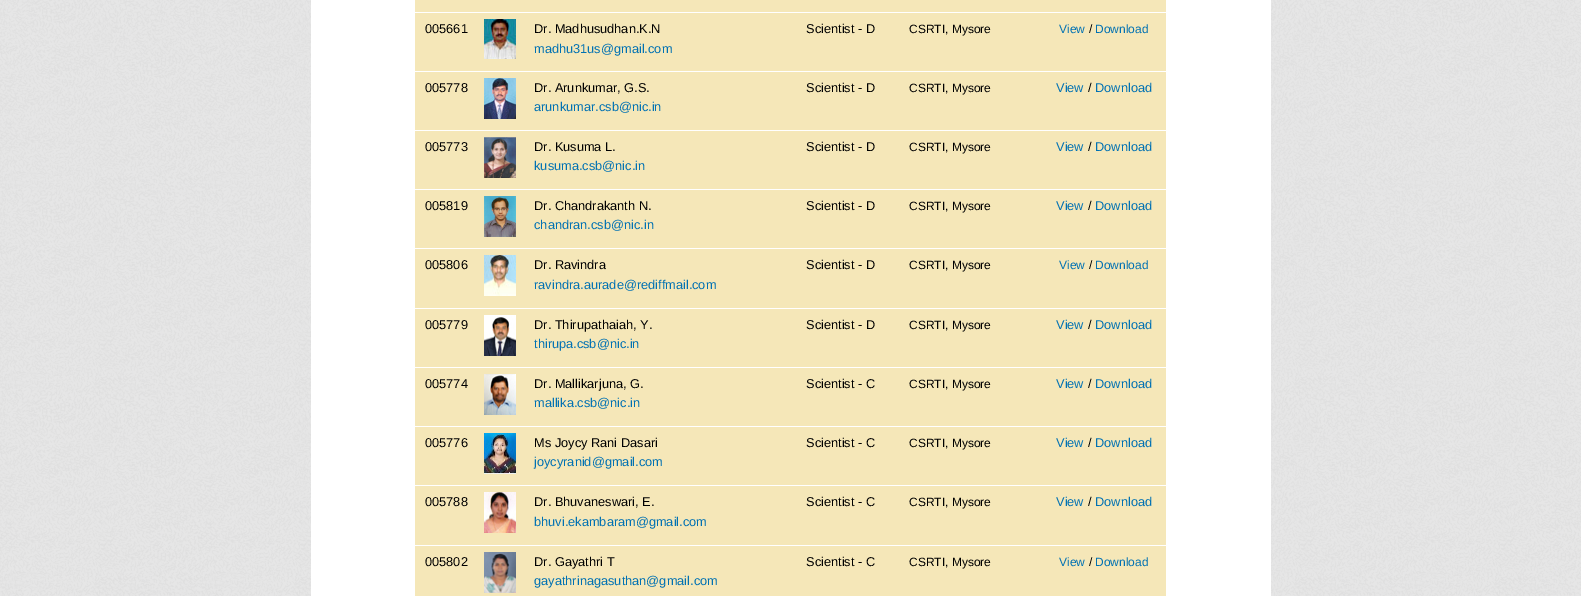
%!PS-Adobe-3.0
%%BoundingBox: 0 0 1581 596
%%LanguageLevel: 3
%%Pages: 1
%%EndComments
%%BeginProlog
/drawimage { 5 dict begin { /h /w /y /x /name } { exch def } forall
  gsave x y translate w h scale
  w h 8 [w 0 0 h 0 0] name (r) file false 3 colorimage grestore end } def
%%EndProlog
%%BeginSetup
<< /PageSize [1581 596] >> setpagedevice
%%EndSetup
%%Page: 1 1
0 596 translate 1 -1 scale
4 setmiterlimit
1 setgray
0 0 1581 596 rectfill
(images/1.raw) 0 0 1581 596 drawimage
311 0 960 596 rectfill
0.961 0.906 0.722 setrgbcolor
415 0 751 12 rectfill
415 13 751 58 rectfill
(images/2.raw) 484 19 32 40 drawimage
415 72 751 58 rectfill
(images/3.raw) 484 78 32 41 drawimage
415 131 751 58 rectfill
(images/4.raw) 484 137 32 41 drawimage
415 190 751 58 rectfill
(images/5.raw) 484 196 32 41 drawimage
415 249 751 59 rectfill
(images/6.raw) 484 255 32 41 drawimage
415 309 751 58 rectfill
(images/7.raw) 484 315 32 41 drawimage
415 368 751 58 rectfill
(images/8.raw) 484 374 32 41 drawimage
415 427 751 58 rectfill
(images/9.raw) 484 433 32 41 drawimage
415 486 751 59 rectfill
(images/10.raw) 484 492 32 41 drawimage
415 546 751 50 rectfill
(images/11.raw) 484 552 32 41 drawimage
/LiberationSans-Regular [12.8 0 0 -12.8 0 0] selectfont
0 setgray
425 33 moveto (005661) show
534 33 moveto (Dr. Madhusudhan.K.N) show
0 0.443 0.702 setrgbcolor
534 53 moveto (madhu31us@gmail.com) show
0 setgray
806 33 moveto (Scientist - D) show
/LiberationSans-Regular [12 0 0 -12 0 0] selectfont
909 33 moveto (CSRTI, Mysore) show
0 0.443 0.702 setrgbcolor
1059 33 moveto (View) show
0 setgray
1089 33 moveto (/) show
0 0.443 0.702 setrgbcolor
1095 33 moveto (Download) show
/LiberationSans-Regular [12.8 0 0 -12.8 0 0] selectfont
0 setgray
425 92 moveto (005778) show
534 92 moveto (Dr. Arunkumar, G.S.) show
0 0.443 0.702 setrgbcolor
534 111 moveto (arunkumar.csb@nic.in) show
0 setgray
806 92 moveto (Scientist - D) show
/LiberationSans-Regular [12 0 0 -12 0 0] selectfont
909 92 moveto (CSRTI, Mysore) show
/LiberationSans-Regular [12.8 0 0 -12.8 0 0] selectfont
0 0.443 0.702 setrgbcolor
1056 92 moveto (View) show
0 setgray
1088 92 moveto (/) show
0 0.443 0.702 setrgbcolor
1095 92 moveto (Download) show
0 setgray
425 151 moveto (005773) show
534 151 moveto (Dr. Kusuma L.) show
0 0.443 0.702 setrgbcolor
534 170 moveto (kusuma.csb@nic.in) show
0 setgray
806 151 moveto (Scientist - D) show
/LiberationSans-Regular [12 0 0 -12 0 0] selectfont
909 151 moveto (CSRTI, Mysore) show
/LiberationSans-Regular [12.8 0 0 -12.8 0 0] selectfont
0 0.443 0.702 setrgbcolor
1056 151 moveto (View) show
0 setgray
1088 151 moveto (/) show
0 0.443 0.702 setrgbcolor
1095 151 moveto (Download) show
0 setgray
425 210 moveto (005819) show
534 210 moveto (Dr. Chandrakanth N.) show
0 0.443 0.702 setrgbcolor
534 229 moveto (chandran.csb@nic.in) show
0 setgray
806 210 moveto (Scientist - D) show
/LiberationSans-Regular [12 0 0 -12 0 0] selectfont
909 210 moveto (CSRTI, Mysore) show
/LiberationSans-Regular [12.8 0 0 -12.8 0 0] selectfont
0 0.443 0.702 setrgbcolor
1056 210 moveto (View) show
0 setgray
1088 210 moveto (/) show
0 0.443 0.702 setrgbcolor
1095 210 moveto (Download) show
0 setgray
425 269 moveto (005806) show
534 269 moveto (Dr. Ravindra) show
0 0.443 0.702 setrgbcolor
534 289 moveto (ravindra.aurade@rediffmail.com) show
0 setgray
806 269 moveto (Scientist - D) show
/LiberationSans-Regular [12 0 0 -12 0 0] selectfont
909 269 moveto (CSRTI, Mysore) show
0 0.443 0.702 setrgbcolor
1059 269 moveto (View) show
0 setgray
1089 269 moveto (/) show
0 0.443 0.702 setrgbcolor
1095 269 moveto (Download) show
/LiberationSans-Regular [12.8 0 0 -12.8 0 0] selectfont
0 setgray
425 329 moveto (005779) show
534 329 moveto (Dr. Thirupathaiah, Y.) show
0 0.443 0.702 setrgbcolor
534 348 moveto (thirupa.csb@nic.in) show
0 setgray
806 329 moveto (Scientist - D) show
/LiberationSans-Regular [12 0 0 -12 0 0] selectfont
909 329 moveto (CSRTI, Mysore) show
/LiberationSans-Regular [12.8 0 0 -12.8 0 0] selectfont
0 0.443 0.702 setrgbcolor
1056 329 moveto (View) show
0 setgray
1088 329 moveto (/) show
0 0.443 0.702 setrgbcolor
1095 329 moveto (Download) show
0 setgray
425 388 moveto (005774) show
534 388 moveto (Dr. Mallikarjuna, G.) show
0 0.443 0.702 setrgbcolor
534 407 moveto (mallika.csb@nic.in) show
0 setgray
806 388 moveto (Scientist - C) show
/LiberationSans-Regular [12 0 0 -12 0 0] selectfont
909 388 moveto (CSRTI, Mysore) show
/LiberationSans-Regular [12.8 0 0 -12.8 0 0] selectfont
0 0.443 0.702 setrgbcolor
1056 388 moveto (View) show
0 setgray
1088 388 moveto (/) show
0 0.443 0.702 setrgbcolor
1095 388 moveto (Download) show
0 setgray
425 447 moveto (005776) show
534 447 moveto (Ms Joycy Rani Dasari) show
0 0.443 0.702 setrgbcolor
534 466 moveto (joycyranid@gmail.com) show
0 setgray
806 447 moveto (Scientist - C) show
/LiberationSans-Regular [12 0 0 -12 0 0] selectfont
909 447 moveto (CSRTI, Mysore) show
/LiberationSans-Regular [12.8 0 0 -12.8 0 0] selectfont
0 0.443 0.702 setrgbcolor
1056 447 moveto (View) show
0 setgray
1088 447 moveto (/) show
0 0.443 0.702 setrgbcolor
1095 447 moveto (Download) show
0 setgray
425 506 moveto (005788) show
534 506 moveto (Dr. Bhuvaneswari, E.) show
0 0.443 0.702 setrgbcolor
534 526 moveto (bhuvi.ekambaram@gmail.com) show
0 setgray
806 506 moveto (Scientist - C) show
/LiberationSans-Regular [12 0 0 -12 0 0] selectfont
909 506 moveto (CSRTI, Mysore) show
/LiberationSans-Regular [12.8 0 0 -12.8 0 0] selectfont
0 0.443 0.702 setrgbcolor
1056 506 moveto (View) show
0 setgray
1088 506 moveto (/) show
0 0.443 0.702 setrgbcolor
1095 506 moveto (Download) show
0 setgray
425 566 moveto (005802) show
534 566 moveto (Dr. Gayathri T) show
0 0.443 0.702 setrgbcolor
534 585 moveto (gayathrinagasuthan@gmail.com) show
0 setgray
806 566 moveto (Scientist - C) show
/LiberationSans-Regular [12 0 0 -12 0 0] selectfont
909 566 moveto (CSRTI, Mysore) show
0 0.443 0.702 setrgbcolor
1059 566 moveto (View) show
0 setgray
1089 566 moveto (/) show
0 0.443 0.702 setrgbcolor
1095 566 moveto (Download) show
showpage
%%EOF
